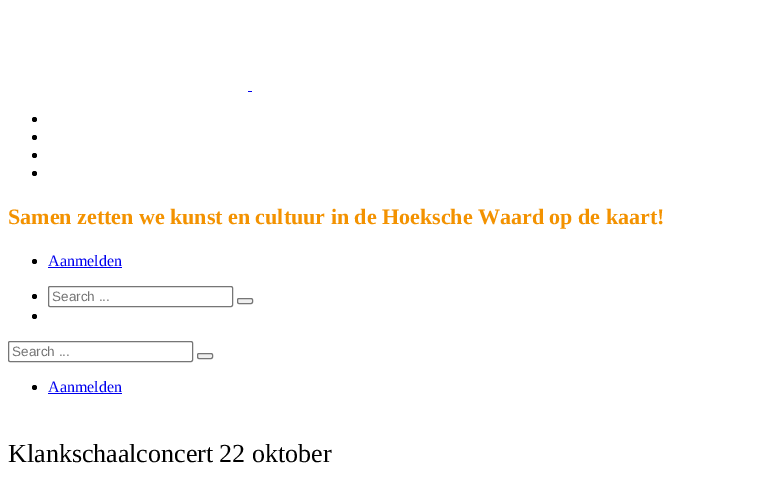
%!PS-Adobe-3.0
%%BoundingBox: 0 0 773 488
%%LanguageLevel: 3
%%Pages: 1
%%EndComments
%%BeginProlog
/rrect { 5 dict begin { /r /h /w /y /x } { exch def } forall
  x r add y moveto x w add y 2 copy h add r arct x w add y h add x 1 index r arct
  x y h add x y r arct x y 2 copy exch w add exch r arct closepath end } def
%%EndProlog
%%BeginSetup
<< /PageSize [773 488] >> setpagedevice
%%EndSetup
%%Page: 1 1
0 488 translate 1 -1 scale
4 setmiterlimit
1 setgray
0 0 773 488 rectfill
0 0 0.933 setrgbcolor
248 91 4 1 rectfill
0 setgray
newpath 34.5 119.5 2.5 0 360 arc closepath fill
newpath 34.5 137.5 2.5 0 360 arc closepath fill
newpath 34.5 155.5 2.5 0 360 arc closepath fill
newpath 34.5 173.5 2.5 0 360 arc closepath fill
newpath 34.5 261.5 2.5 0 360 arc closepath fill
0 0 0.933 setrgbcolor
48 267 74 1 rectfill
0 setgray
newpath 34.5 296.5 2.5 0 360 arc closepath fill
0.463 setgray
48.5 286.5 184 20 1.5 rrect stroke
0.937 setgray
237.5 298.5 15 5 1.5 rrect gsave fill grestore
0.463 setgray
stroke
0 setgray
newpath 34.5 316.5 2.5 0 360 arc closepath fill
0.463 setgray
8.5 341.5 184 20 1.5 rrect stroke
0.937 setgray
197.5 353.5 15 5 1.5 rrect gsave fill grestore
0.463 setgray
stroke
0 setgray
newpath 34.5 387.5 2.5 0 360 arc closepath fill
0 0 0.933 setrgbcolor
48 393 74 1 rectfill
/LiberationSerif-Bold [22 0 0 -22 0 0] selectfont
0.953 0.573 0 setrgbcolor
8 224 moveto (Samen zetten we kunst en cultuur in de Hoeksche Waard op de kaart!) show
/LiberationSerif-Regular [16 0 0 -16 0 0] selectfont
0 0 0.933 setrgbcolor
48 266 moveto (Aanmelden) show
/LiberationSans-Regular [13.5 0 0 -13.5 0 0] selectfont
0.459 setgray
52 301 moveto (Search ...) show
12 356 moveto (Search ...) show
/LiberationSerif-Regular [16 0 0 -16 0 0] selectfont
0 0 0.933 setrgbcolor
48 392 moveto (Aanmelden) show
/LiberationSerif-Regular [26 0 0 -26 0 0] selectfont
0 setgray
8 462 moveto (Klankschaalconcert 22 oktober) show
showpage
%%EOF
